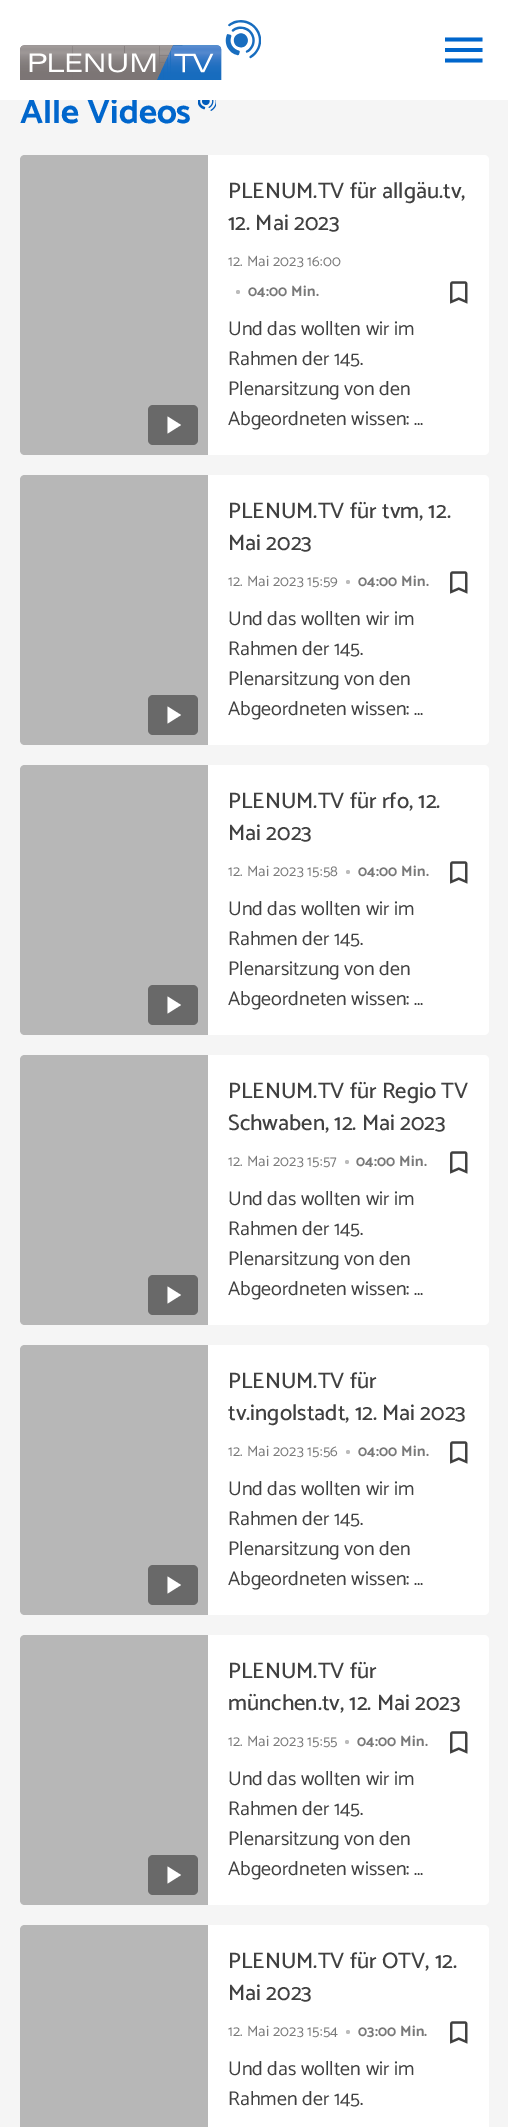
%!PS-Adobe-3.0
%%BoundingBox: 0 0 508 2127
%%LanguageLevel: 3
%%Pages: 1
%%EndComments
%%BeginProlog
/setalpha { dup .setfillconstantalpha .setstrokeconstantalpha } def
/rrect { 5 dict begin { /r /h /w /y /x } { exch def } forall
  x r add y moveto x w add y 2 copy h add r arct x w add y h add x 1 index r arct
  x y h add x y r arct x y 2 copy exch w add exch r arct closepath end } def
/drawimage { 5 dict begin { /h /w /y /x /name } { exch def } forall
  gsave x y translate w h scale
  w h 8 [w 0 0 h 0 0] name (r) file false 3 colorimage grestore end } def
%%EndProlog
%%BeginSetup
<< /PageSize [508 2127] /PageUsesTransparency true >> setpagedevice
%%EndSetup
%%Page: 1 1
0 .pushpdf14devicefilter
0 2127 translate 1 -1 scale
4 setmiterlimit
0.961 setgray
0 0 508 2127 rectfill
(images/2.raw) 198 100 18 11 drawimage
1 setgray
20 155 469 300 5 rrect fill
0.2 setalpha
0 setgray
newpath 25 155 moveto 208 155 lineto 208 455 lineto 25 455 lineto 22 455 20 453 20 450 curveto 20 160 lineto 20 157 22 155 25 155 curveto closepath fill
0.1 setalpha
newpath 25 155 moveto 208 155 lineto 208 455 lineto 25 455 lineto 22 455 20 453 20 450 curveto 20 160 lineto 20 157 22 155 25 155 curveto closepath fill
1 setalpha
0.412 setgray
148 405 50 40 5 rrect fill
1 setgray
newpath 167.5 416.5 moveto 181 425 lineto 167.5 433.5 lineto closepath fill
0.737 setgray
newpath 238 292 2 0 360 arc closepath fill
(images/3.raw) 450 281 18 23 drawimage
1 setgray
20 475 469 270 5 rrect fill
0.2 setalpha
0 setgray
newpath 25 475 moveto 208 475 lineto 208 745 lineto 25 745 lineto 22 745 20 743 20 740 curveto 20 480 lineto 20 477 22 475 25 475 curveto closepath fill
0.1 setalpha
newpath 25 475 moveto 208 475 lineto 208 745 lineto 25 745 lineto 22 745 20 743 20 740 curveto 20 480 lineto 20 477 22 475 25 475 curveto closepath fill
1 setalpha
0.412 setgray
148 695 50 40 5 rrect fill
1 setgray
newpath 167.5 706.5 moveto 181 715 lineto 167.5 723.5 lineto closepath fill
0.737 setgray
newpath 348 582 2 0 360 arc closepath fill
(images/3.raw) 450 571 18 23 drawimage
1 setgray
20 765 469 270 5 rrect fill
0.2 setalpha
0 setgray
newpath 25 765 moveto 208 765 lineto 208 1035 lineto 25 1035 lineto 22 1035 20 1033 20 1030 curveto 20 770 lineto 20 767 22 765 25 765 curveto closepath fill
0.1 setalpha
newpath 25 765 moveto 208 765 lineto 208 1035 lineto 25 1035 lineto 22 1035 20 1033 20 1030 curveto 20 770 lineto 20 767 22 765 25 765 curveto closepath fill
1 setalpha
0.412 setgray
148 985 50 40 5 rrect fill
1 setgray
newpath 167.5 996.5 moveto 181 1005 lineto 167.5 1013.5 lineto closepath fill
0.737 setgray
newpath 348 872 2 0 360 arc closepath fill
(images/3.raw) 450 861 18 23 drawimage
1 setgray
20 1055 469 270 5 rrect fill
0.2 setalpha
0 setgray
newpath 25 1055 moveto 208 1055 lineto 208 1325 lineto 25 1325 lineto 22 1325 20 1323 20 1320 curveto 20 1060 lineto 20 1057 22 1055 25 1055 curveto closepath fill
0.1 setalpha
newpath 25 1055 moveto 208 1055 lineto 208 1325 lineto 25 1325 lineto 22 1325 20 1323 20 1320 curveto 20 1060 lineto 20 1057 22 1055 25 1055 curveto closepath fill
1 setalpha
0.412 setgray
148 1275 50 40 5 rrect fill
1 setgray
newpath 167.5 1286.5 moveto 181 1295 lineto 167.5 1303.5 lineto closepath fill
0.737 setgray
newpath 347 1162 2 0 360 arc closepath fill
(images/3.raw) 450 1151 18 23 drawimage
1 setgray
20 1345 469 270 5 rrect fill
0.2 setalpha
0 setgray
newpath 25 1345 moveto 208 1345 lineto 208 1615 lineto 25 1615 lineto 22 1615 20 1613 20 1610 curveto 20 1350 lineto 20 1347 22 1345 25 1345 curveto closepath fill
0.1 setalpha
newpath 25 1345 moveto 208 1345 lineto 208 1615 lineto 25 1615 lineto 22 1615 20 1613 20 1610 curveto 20 1350 lineto 20 1347 22 1345 25 1345 curveto closepath fill
1 setalpha
0.412 setgray
148 1565 50 40 5 rrect fill
1 setgray
newpath 167.5 1576.5 moveto 181 1585 lineto 167.5 1593.5 lineto closepath fill
0.737 setgray
newpath 348 1452 2 0 360 arc closepath fill
(images/3.raw) 450 1441 18 23 drawimage
1 setgray
20 1635 469 270 5 rrect fill
0.2 setalpha
0 setgray
newpath 25 1635 moveto 208 1635 lineto 208 1905 lineto 25 1905 lineto 22 1905 20 1903 20 1900 curveto 20 1640 lineto 20 1637 22 1635 25 1635 curveto closepath fill
0.1 setalpha
newpath 25 1635 moveto 208 1635 lineto 208 1905 lineto 25 1905 lineto 22 1905 20 1903 20 1900 curveto 20 1640 lineto 20 1637 22 1635 25 1635 curveto closepath fill
1 setalpha
0.412 setgray
148 1855 50 40 5 rrect fill
1 setgray
newpath 167.5 1866.5 moveto 181 1875 lineto 167.5 1883.5 lineto closepath fill
0.737 setgray
newpath 347 1742 2 0 360 arc closepath fill
(images/3.raw) 450 1731 18 23 drawimage
1 setgray
20 1925 469 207 5 rrect fill
0.2 setalpha
0 setgray
newpath 25 1925 moveto 208 1925 lineto 208 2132 lineto 25 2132 lineto 22 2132 20 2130 20 2127 curveto 20 1930 lineto 20 1927 22 1925 25 1925 curveto closepath fill
0.1 setalpha
newpath 25 1925 moveto 208 1925 lineto 208 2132 lineto 25 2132 lineto 22 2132 20 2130 20 2127 curveto 20 1930 lineto 20 1927 22 1925 25 1925 curveto closepath fill
1 setalpha
0.737 setgray
newpath 348 2032 2 0 360 arc closepath fill
(images/3.raw) 450 2021 18 23 drawimage
/Catamaran-Bold [35 0 0 -35 0 0] selectfont
0 0.4 0.8 setrgbcolor
20 123 moveto (Alle Videos) show
1 setgray
0 0 508 100 rectfill
0 0.4 0.8 setrgbcolor
newpath 445 37.5 moveto 482.5 37.5 lineto 482.5 41.5 lineto 445 41.5 lineto closepath 445 52 moveto 445 48 lineto 482.5 48 lineto 482.5 52 lineto closepath 445 62.5 moveto 445 58.5 lineto 482.5 58.5 lineto 482.5 62.5 lineto closepath fill
(images/1.raw) 20 20 241 60 drawimage
/Catamaran-Medium [22.5 0 0 -22.5 0 0] selectfont
0.251 setgray
228 198 moveto (PLENUM.TV für allgäu.tv,) show
228 230 moveto (12. Mai 2023) show
/Catamaran-Regular [15 0 0 -15 0 0] selectfont
0.475 setgray
228 266 moveto 0.2 0 (12. Mai 2023 16:00) ashow
/Catamaran-Bold [15 0 0 -15 0 0] selectfont
248 296 moveto 0.2 0 (04:00 Min.) ashow
/Catamaran-Regular [20 0 0 -20 0 0] selectfont
0.251 setgray
228 335 moveto (Und das wollten wir im) show
228 365 moveto (Rahmen der 145.) show
228 395 moveto (Plenarsitzung von den) show
228 425 moveto (Abgeordneten wissen: …) show
/Catamaran-Medium [22.5 0 0 -22.5 0 0] selectfont
228 518 moveto (PLENUM.TV für tvm, 12.) show
228 550 moveto (Mai 2023) show
/Catamaran-Regular [15 0 0 -15 0 0] selectfont
0.475 setgray
228 586 moveto 0.2 0 (12. Mai 2023 15:59) ashow
/Catamaran-Bold [15 0 0 -15 0 0] selectfont
358 586 moveto 0.2 0 (04:00 Min.) ashow
/Catamaran-Regular [20 0 0 -20 0 0] selectfont
0.251 setgray
228 625 moveto (Und das wollten wir im) show
228 655 moveto (Rahmen der 145.) show
228 685 moveto (Plenarsitzung von den) show
228 715 moveto (Abgeordneten wissen: …) show
/Catamaran-Medium [22.5 0 0 -22.5 0 0] selectfont
228 808 moveto (PLENUM.TV für rfo, 12.) show
228 840 moveto (Mai 2023) show
/Catamaran-Regular [15 0 0 -15 0 0] selectfont
0.475 setgray
228 876 moveto 0.2 0 (12. Mai 2023 15:58) ashow
/Catamaran-Bold [15 0 0 -15 0 0] selectfont
358 876 moveto 0.2 0 (04:00 Min.) ashow
/Catamaran-Regular [20 0 0 -20 0 0] selectfont
0.251 setgray
228 915 moveto (Und das wollten wir im) show
228 945 moveto (Rahmen der 145.) show
228 975 moveto (Plenarsitzung von den) show
228 1005 moveto (Abgeordneten wissen: …) show
/Catamaran-Medium [22.5 0 0 -22.5 0 0] selectfont
228 1098 moveto (PLENUM.TV für Regio TV) show
228 1130 moveto (Schwaben, 12. Mai 2023) show
/Catamaran-Regular [15 0 0 -15 0 0] selectfont
0.475 setgray
228 1166 moveto 0.2 0 (12. Mai 2023 15:57) ashow
/Catamaran-Bold [15 0 0 -15 0 0] selectfont
356 1166 moveto 0.2 0 (04:00 Min.) ashow
/Catamaran-Regular [20 0 0 -20 0 0] selectfont
0.251 setgray
228 1205 moveto (Und das wollten wir im) show
228 1235 moveto (Rahmen der 145.) show
228 1265 moveto (Plenarsitzung von den) show
228 1295 moveto (Abgeordneten wissen: …) show
/Catamaran-Medium [22.5 0 0 -22.5 0 0] selectfont
228 1388 moveto (PLENUM.TV für) show
228 1420 moveto (tv.ingolstadt, 12. Mai 2023) show
/Catamaran-Regular [15 0 0 -15 0 0] selectfont
0.475 setgray
228 1456 moveto 0.2 0 (12. Mai 2023 15:56) ashow
/Catamaran-Bold [15 0 0 -15 0 0] selectfont
358 1456 moveto 0.2 0 (04:00 Min.) ashow
/Catamaran-Regular [20 0 0 -20 0 0] selectfont
0.251 setgray
228 1495 moveto (Und das wollten wir im) show
228 1525 moveto (Rahmen der 145.) show
228 1555 moveto (Plenarsitzung von den) show
228 1585 moveto (Abgeordneten wissen: …) show
/Catamaran-Medium [22.5 0 0 -22.5 0 0] selectfont
228 1678 moveto (PLENUM.TV für) show
228 1710 moveto (münchen.tv, 12. Mai 2023) show
/Catamaran-Regular [15 0 0 -15 0 0] selectfont
0.475 setgray
228 1746 moveto 0.2 0 (12. Mai 2023 15:55) ashow
/Catamaran-Bold [15 0 0 -15 0 0] selectfont
357 1746 moveto 0.2 0 (04:00 Min.) ashow
/Catamaran-Regular [20 0 0 -20 0 0] selectfont
0.251 setgray
228 1785 moveto (Und das wollten wir im) show
228 1815 moveto (Rahmen der 145.) show
228 1845 moveto (Plenarsitzung von den) show
228 1875 moveto (Abgeordneten wissen: …) show
/Catamaran-Medium [22.5 0 0 -22.5 0 0] selectfont
228 1968 moveto (PLENUM.TV für OTV, 12.) show
228 2000 moveto (Mai 2023) show
/Catamaran-Regular [15 0 0 -15 0 0] selectfont
0.475 setgray
228 2036 moveto 0.2 0 (12. Mai 2023 15:54) ashow
/Catamaran-Bold [15 0 0 -15 0 0] selectfont
358 2036 moveto 0.2 0 (03:00 Min.) ashow
/Catamaran-Regular [20 0 0 -20 0 0] selectfont
0.251 setgray
228 2075 moveto (Und das wollten wir im) show
228 2105 moveto (Rahmen der 145.) show
.poppdf14devicefilter showpage
%%EOF
